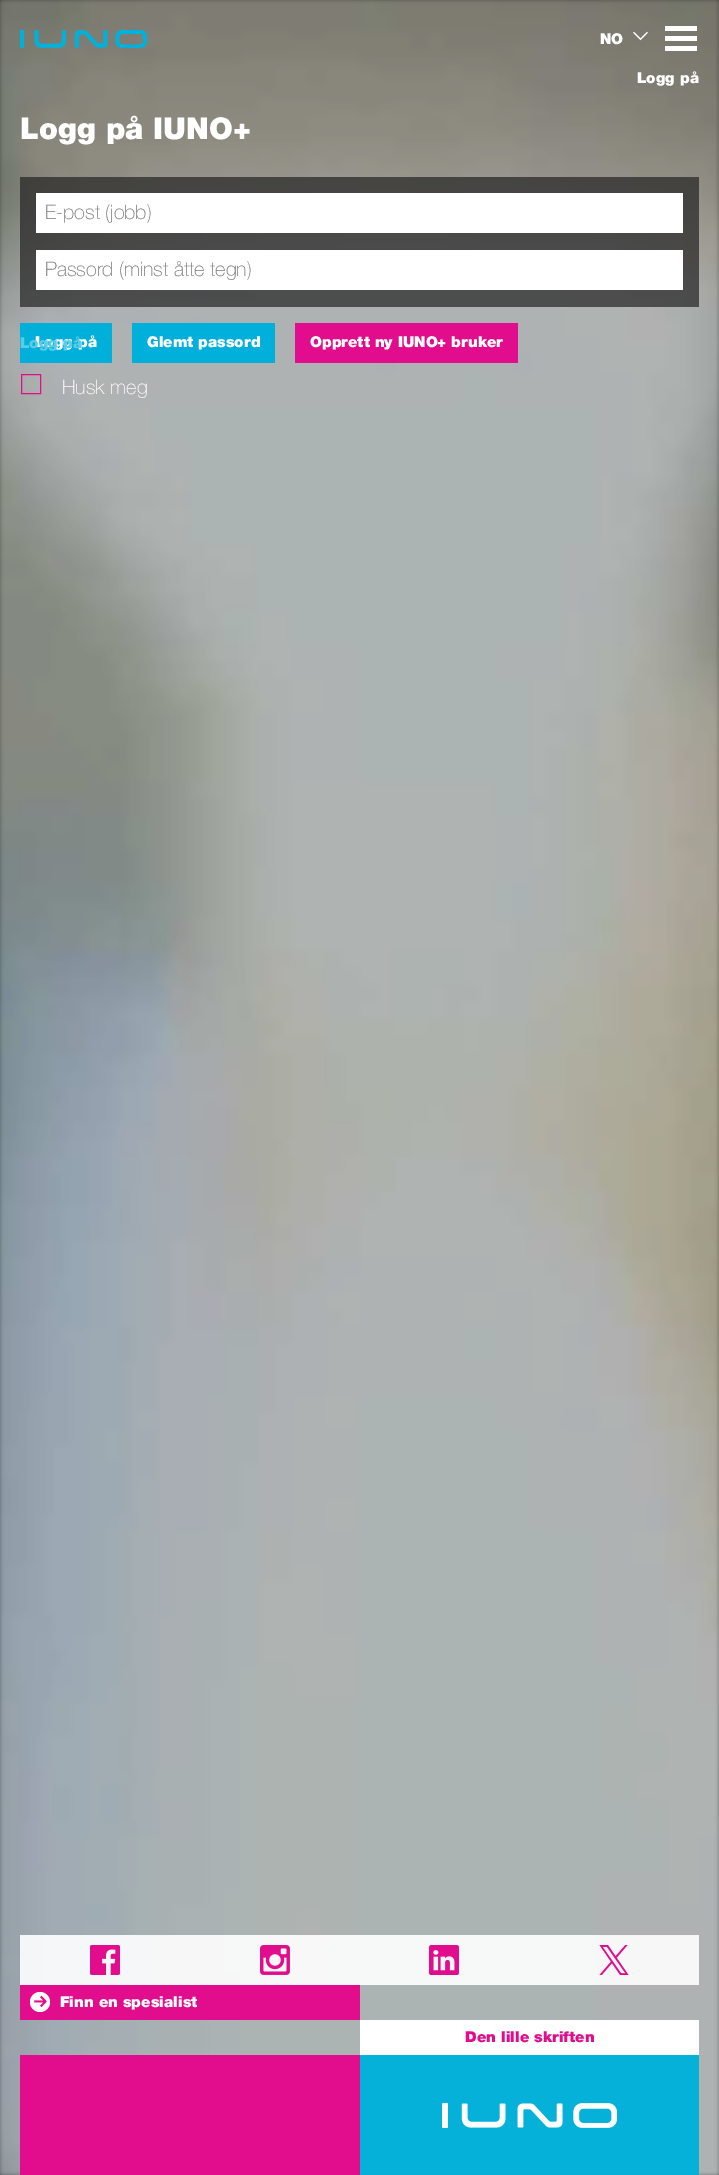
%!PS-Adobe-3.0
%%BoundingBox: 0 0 719 2175
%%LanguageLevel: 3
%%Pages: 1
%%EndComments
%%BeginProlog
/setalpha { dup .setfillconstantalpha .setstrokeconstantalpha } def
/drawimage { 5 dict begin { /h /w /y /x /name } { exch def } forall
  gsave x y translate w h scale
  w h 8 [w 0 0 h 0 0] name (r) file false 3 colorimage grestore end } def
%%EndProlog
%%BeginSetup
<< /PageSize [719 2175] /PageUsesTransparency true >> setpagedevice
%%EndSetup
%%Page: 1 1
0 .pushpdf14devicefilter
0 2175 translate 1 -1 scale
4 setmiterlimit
0 setgray
0 0 719 2175 rectfill
(images/1.raw) 0 0 719 2175 drawimage
(images/2.raw) 20 30 127 18 drawimage
(images/3.raw) 633 31 15 10 drawimage
1 setgray
665 26 32 5 rectfill
665 36 32 5 rectfill
665 46 32 5 rectfill
0.7 setalpha
0.133 setgray
20 177 679 130 rectfill
1 setalpha
1 setgray
36 193 647 40 rectfill
36 250 647 40 rectfill
0 0.69 0.855 setrgbcolor
20 323 92 40 rectfill
132 323 143 40 rectfill
0.886 0.051 0.549 setrgbcolor
295 323 223 40 rectfill
21.5 374.5 19 19 rectstroke
0.9 setalpha
1 setgray
20 1935 679 50 rectfill
1 setalpha
(images/4.raw) 90 1945 30 30 drawimage
(images/5.raw) 260 1945 30 30 drawimage
(images/6.raw) 429 1945 30 30 drawimage
(images/7.raw) 599 1945 30 30 drawimage
0.886 0.051 0.549 setrgbcolor
20 1985 340 35 rectfill
1 setgray
newpath 40 2002 10 0 360 arc closepath fill
(images/8.raw) 34 1995 13 13 drawimage
360 2020 339 35 rectfill
0.886 0.051 0.549 setrgbcolor
20 2055 340 120 rectfill
0.97 setalpha
0 0.69 0.855 setrgbcolor
360 2055 339 120 rectfill
1 setalpha
(images/9.raw) 442 2103 175 25 drawimage
/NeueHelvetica-Regular [15 0 0 -15 0 0] selectfont
1 setgray
600 44 moveto (NO) show
637 83 moveto (Logg på) show
/NeueHelvetica-Regular [30 0 0 -30 0 0] selectfont
20 139 moveto (Logg på IUNO+) show
/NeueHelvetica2-Regular [20 0 0 -20 0 0] selectfont
0.459 setgray
45 219 moveto (E-post \(jobb\)) show
45 276 moveto (Passord \(minst åtte tegn\)) show
/NeueHelvetica-Regular [15 0 0 -15 0 0] selectfont
1 setgray
35 347 moveto (Logg på) show
0.353 0.8 0.906 setrgbcolor
20 348 moveto (Logg på) show
1 setgray
147 347 moveto (Glemt passord) show
310 347 moveto (Opprett ny IUNO+ bruker) show
/NeueHelvetica2-Regular [20 0 0 -20 0 0] selectfont
62 394 moveto (Husk meg) show
/NeueHelvetica-Regular [15 0 0 -15 0 0] selectfont
60 2007 moveto (Finn en spesialist) show
0.886 0.051 0.549 setrgbcolor
465 2042 moveto (Den lille skriften) show
.poppdf14devicefilter showpage
%%EOF
